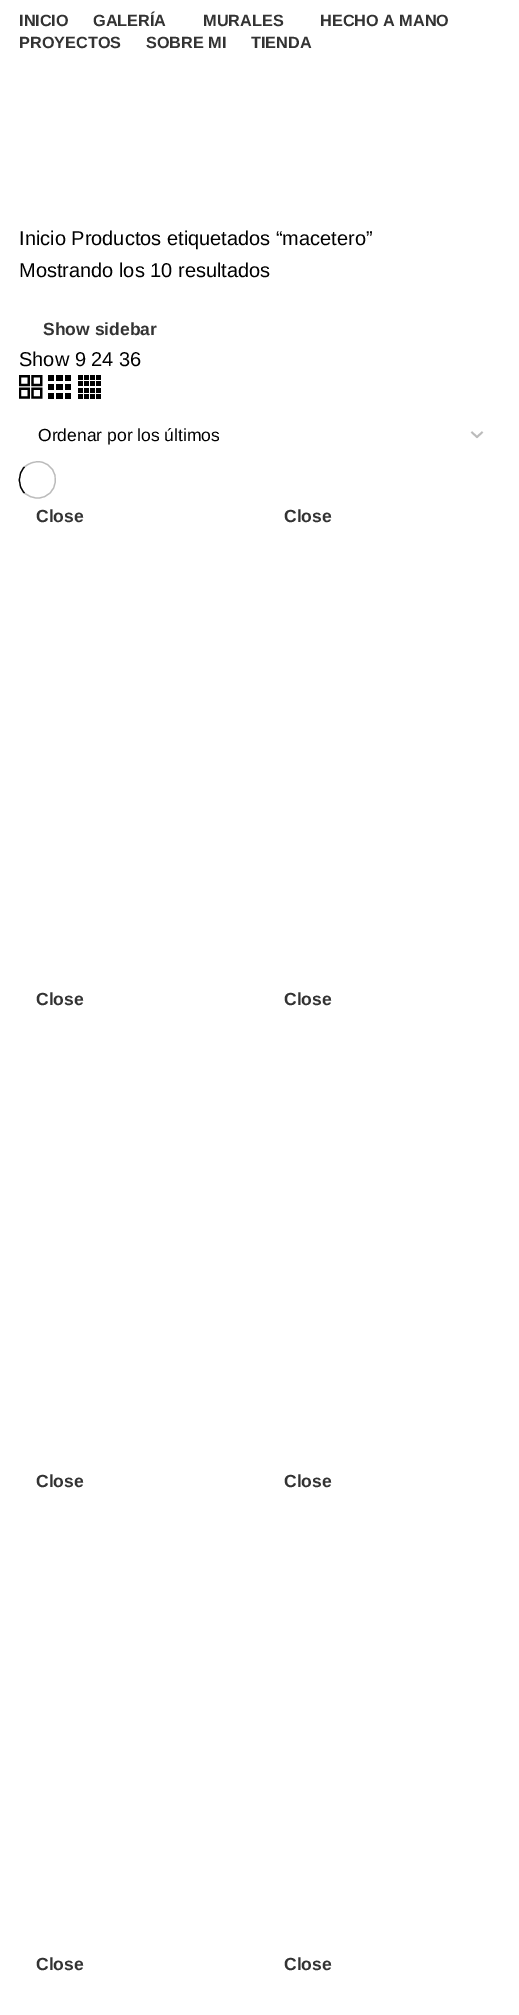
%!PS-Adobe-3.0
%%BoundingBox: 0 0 519 2015
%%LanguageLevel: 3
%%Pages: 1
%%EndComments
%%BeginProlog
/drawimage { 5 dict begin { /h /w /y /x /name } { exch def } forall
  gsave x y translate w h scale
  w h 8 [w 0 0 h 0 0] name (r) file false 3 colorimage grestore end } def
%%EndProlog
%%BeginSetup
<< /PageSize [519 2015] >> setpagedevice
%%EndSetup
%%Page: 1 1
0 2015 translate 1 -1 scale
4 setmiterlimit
1 setgray
0 0 519 2015 rectfill
(images/1.raw) 19 375 24 24 drawimage
(images/2.raw) 48 375 23 24 drawimage
(images/3.raw) 78 375 23 24 drawimage
0.733 setgray
1.8 setlinewidth
newpath 471.5 432 moveto 477 437 lineto 482.5 432 lineto stroke
1.2 setlinewidth
newpath 24.5 467 moveto 29 463 35 461 41 462 curveto 62.5 466.5 59 498 37.5 498 curveto 32.5 498 28 496 24.5 493 curveto stroke
0 setgray
newpath 24.5 493 moveto 17.5 486 17.5 474 24.5 467 curveto stroke
/LiberationSans-Bold [16.25 0 0 -16.25 0 0] selectfont
0.2 setgray
19 26 moveto (INICIO) show
93 26 moveto (GALERÍA) show
203 26 moveto (MURALES) show
320 26 moveto (HECHO A MANO) show
19 48 moveto (PROYECTOS) show
146 48 moveto (SOBRE MI) show
251 48 moveto (TIENDA) show
/LiberationSans-Regular [20 0 0 -20 0 0] selectfont
0 setgray
19 245 moveto (Inicio Productos etiquetados “macetero”) show
19 277 moveto (Mostrando los 10 resultados) show
/LiberationSans-Bold [17.5 0 0 -17.5 0 0] selectfont
0.2 setgray
43 335 moveto (Show sidebar) show
/LiberationSans-Regular [20 0 0 -20 0 0] selectfont
0 setgray
19 366 moveto (Show 9 24 36) show
/LiberationSans-Regular [17.5 0 0 -17.5 0 0] selectfont
38 441 moveto (Ordenar por los últimos) show
/LiberationSans-Bold [17.5 0 0 -17.5 0 0] selectfont
0.2 setgray
36 522 moveto (Close) show
284 522 moveto (Close) show
36 1005 moveto (Close) show
284 1005 moveto (Close) show
36 1487 moveto (Close) show
284 1487 moveto (Close) show
36 1970 moveto (Close) show
284 1970 moveto (Close) show
showpage
%%EOF
